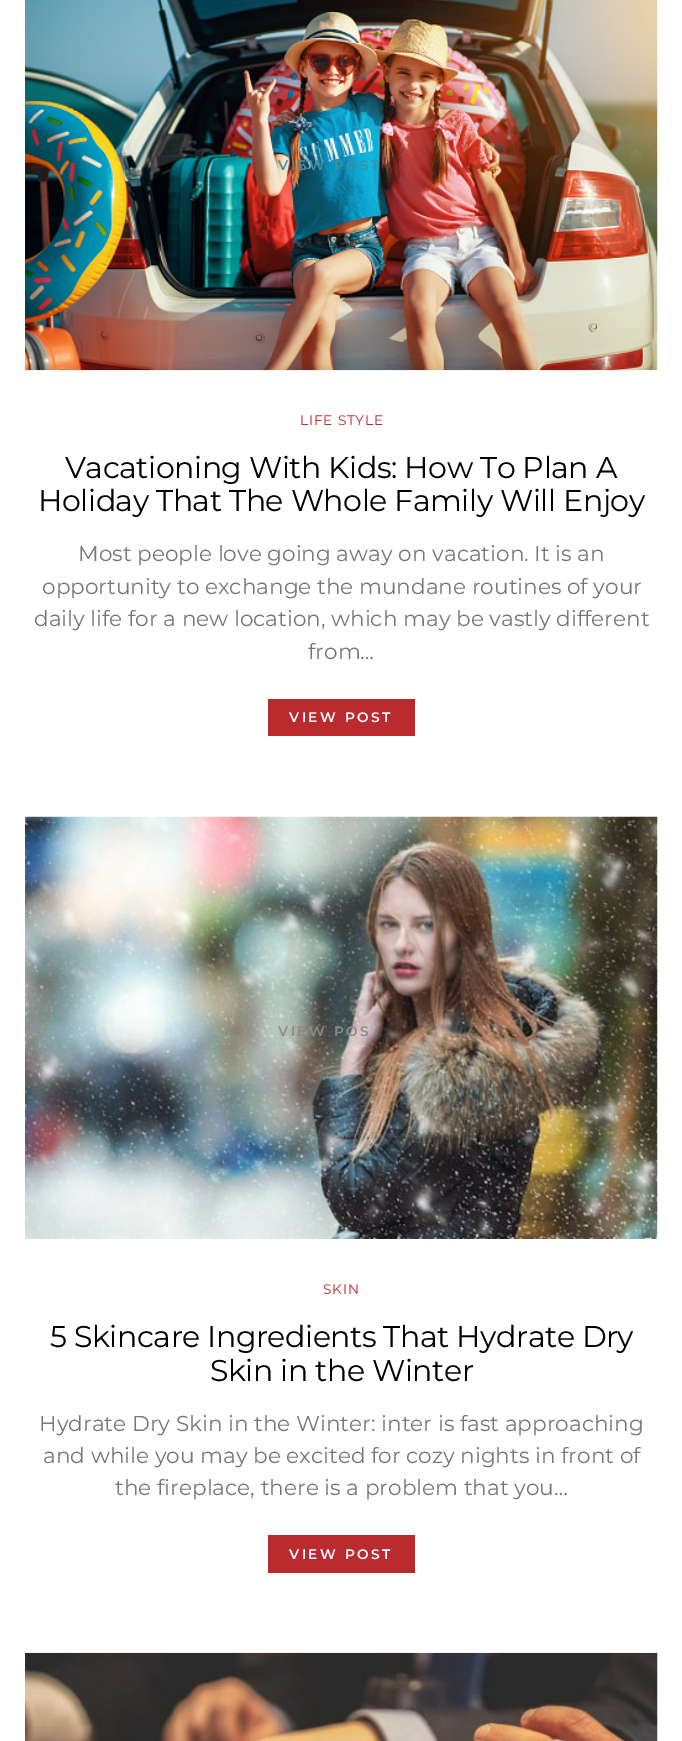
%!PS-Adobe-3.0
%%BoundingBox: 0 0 682 1741
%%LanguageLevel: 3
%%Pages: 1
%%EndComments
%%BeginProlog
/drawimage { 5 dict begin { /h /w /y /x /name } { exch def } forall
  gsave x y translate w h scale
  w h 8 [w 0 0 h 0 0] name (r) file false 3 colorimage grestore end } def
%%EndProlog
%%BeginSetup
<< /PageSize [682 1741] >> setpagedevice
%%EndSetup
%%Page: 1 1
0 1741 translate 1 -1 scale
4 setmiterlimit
1 setgray
0 0 682 1741 rectfill
(images/1.raw) 25 0 633 371 drawimage
0.729 0.169 0.188 setrgbcolor
268 699 147 37 rectfill
(images/2.raw) 25 816 633 423 drawimage
268 1535 147 38 rectfill
(images/3.raw) 25 1652 633 89 drawimage
/Montserrat-SemiBold [13.75 0 0 -13.75 0 0] selectfont
0.243 0.569 0.647 setrgbcolor
278 170 moveto 2.5 0 (VIEW POST) ashow
/Montserrat-Regular [13.75 0 0 -13.75 0 0] selectfont
0.729 0.169 0.188 setrgbcolor
300 425 moveto 0.75 0 (LIFE STYLE) ashow
/Montserrat-Regular [30 0 0 -30 0 0] selectfont
0 setgray
65 478 moveto -0.45 0 (Vacationing With Kids: How To Plan A) ashow
38 511 moveto -0.45 0 (Holiday That The Whole Family Will Enjoy) ashow
/Montserrat-Regular [21.6 0 0 -21.6 0 0] selectfont
0.467 setgray
78 561 moveto (Most people love going away on vacation. It is an) show
42 594 moveto (opportunity to exchange the mundane routines of your) show
34 626 moveto (daily life for a new location, which may be vastly different) show
308 659 moveto (from…) show
/Montserrat-SemiBold [13.75 0 0 -13.75 0 0] selectfont
1 setgray
289 722 moveto 2.5 0 (VIEW POST) ashow
0.553 0.545 0.533 setrgbcolor
278 1036 moveto 2.5 0 (VIEW POS) ashow
/Montserrat-Regular [13.75 0 0 -13.75 0 0] selectfont
0.729 0.169 0.188 setrgbcolor
323 1294 moveto 0.75 0 (SKIN) ashow
/Montserrat-Regular [30 0 0 -30 0 0] selectfont
0 setgray
50 1347 moveto -0.45 0 (5 Skincare Ingredients That Hydrate Dry) ashow
210 1381 moveto -0.45 0 (Skin in the Winter) ashow
/Montserrat-Regular [21.6 0 0 -21.6 0 0] selectfont
0.467 setgray
39 1431 moveto (Hydrate Dry Skin in the Winter: inter is fast approaching) show
43 1463 moveto (and while you may be excited for cozy nights in front of) show
115 1495 moveto (the fireplace, there is a problem that you…) show
/Montserrat-SemiBold [13.75 0 0 -13.75 0 0] selectfont
1 setgray
289 1559 moveto 2.5 0 (VIEW POST) ashow
showpage
%%EOF
